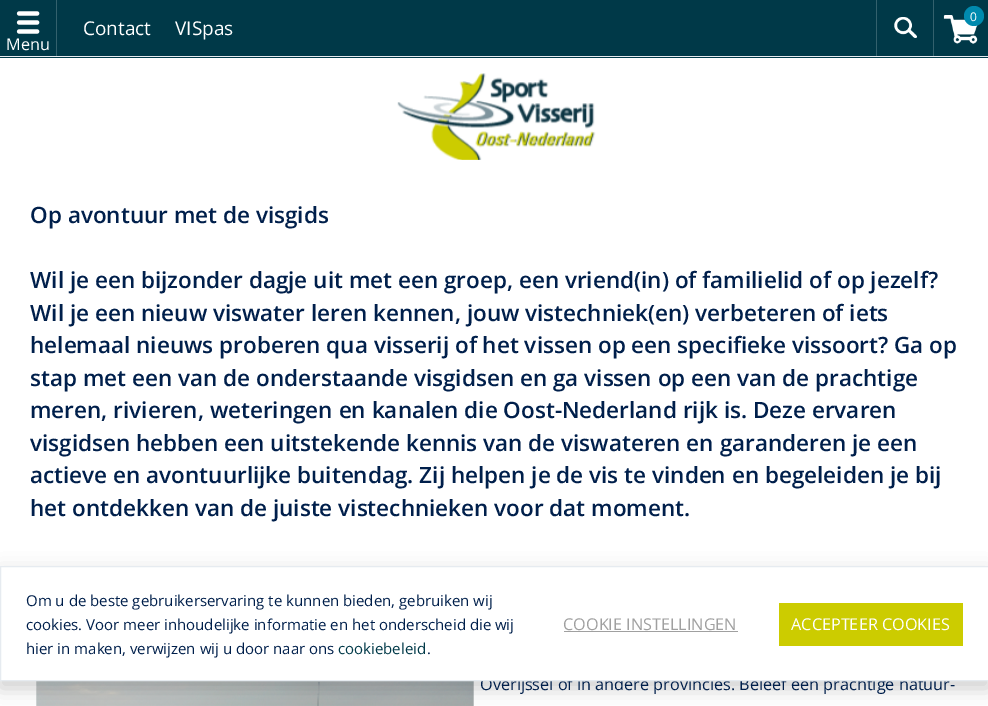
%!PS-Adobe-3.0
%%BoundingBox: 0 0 988 706
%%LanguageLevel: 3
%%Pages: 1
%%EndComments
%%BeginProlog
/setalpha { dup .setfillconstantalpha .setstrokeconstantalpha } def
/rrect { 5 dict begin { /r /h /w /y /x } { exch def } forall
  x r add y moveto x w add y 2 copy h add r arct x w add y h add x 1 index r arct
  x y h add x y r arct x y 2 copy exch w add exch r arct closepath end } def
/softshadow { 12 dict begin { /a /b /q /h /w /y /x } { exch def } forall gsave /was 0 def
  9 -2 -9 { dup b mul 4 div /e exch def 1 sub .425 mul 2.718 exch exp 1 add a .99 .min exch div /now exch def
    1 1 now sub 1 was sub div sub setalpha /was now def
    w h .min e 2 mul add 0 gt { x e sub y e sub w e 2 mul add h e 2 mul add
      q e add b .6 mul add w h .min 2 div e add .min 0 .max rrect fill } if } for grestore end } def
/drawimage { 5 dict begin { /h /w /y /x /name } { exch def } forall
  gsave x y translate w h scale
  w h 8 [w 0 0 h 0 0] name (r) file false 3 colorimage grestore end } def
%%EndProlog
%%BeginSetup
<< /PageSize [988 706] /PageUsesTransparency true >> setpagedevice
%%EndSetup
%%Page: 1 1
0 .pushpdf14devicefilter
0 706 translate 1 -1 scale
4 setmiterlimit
1 setgray
0 0 988 706 rectfill
0 0.224 0.282 setrgbcolor
0 0 988 58 rectfill
0.902 0.922 0.941 setrgbcolor
0 56 988 1 rectfill
(images/1.raw) 894 17 23 21 drawimage
0.2 0.38 0.427 setrgbcolor
876 0 1 56 rectfill
(images/2.raw) 943 15 35 29 drawimage
933 0 1 56 rectfill
0 0.541 0.682 setrgbcolor
newpath 974 16 10 0 360 arc closepath fill
0.2 0.38 0.427 setrgbcolor
56 0 1 56 rectfill
(images/3.raw) 16 11 24 23 drawimage
(images/4.raw) 397 73 199 87 drawimage
(images/5.raw) 36 681 438 25 drawimage
0 setgray
0 573 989 115 0 9.5 0.1 softshadow
0 573 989 115 0 9.5 0.1 softshadow
/OpenSans-Regular [12 0 0 -12 0 0] selectfont
1 setgray
970 21 moveto (0) show
/OpenSans-Regular [19 0 0 -19 0 0] selectfont
83 35 moveto (Contact) show
175 35 moveto (VISpas) show
/OpenSans-Regular [16.25 0 0 -16.25 0 0] selectfont
6 50 moveto (Menu) show
/OpenSans-SemiBold [22.5 0 0 -22.5 0 0] selectfont
0 0.122 0.294 setrgbcolor
30 223 moveto (Op avontuur met de visgids) show
30 288 moveto (Wil je een bijzonder dagje uit met een groep, een vriend\(in\) of familielid of op jezelf?) show
30 321 moveto (Wil je een nieuw viswater leren kennen, jouw vistechniek\(en\) verbeteren of iets) show
30 353 moveto (helemaal nieuws proberen qua visserij of het vissen op een specifieke vissoort? Ga op) show
30 386 moveto (stap met een van de onderstaande visgidsen en ga vissen op een van de prachtige) show
30 418 moveto (meren, rivieren, weteringen en kanalen die Oost-Nederland rijk is. Deze ervaren) show
30 451 moveto (visgidsen hebben een uitstekende kennis van de viswateren en garanderen je een) show
30 483 moveto (actieve en avontuurlijke buitendag. Zij helpen je de vis te vinden en begeleiden je bij) show
30 516 moveto (het ontdekken van de juiste vistechnieken voor dat moment.) show
/OpenSans-Regular [16.25 0 0 -16.25 0 0] selectfont
480 690 moveto (Overijssel of in andere provincies. Beleef een prachtige natuur-) show
1 setgray
newpath 0.5 566.5 moveto 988.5 566.5 lineto 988.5 680.5 lineto 0.5 680.5 lineto closepath gsave fill grestore
0.902 0.922 0.941 setrgbcolor
stroke
/OpenSans-Regular [15 0 0 -15 0 0] selectfont
0 0.122 0.294 setrgbcolor
26 606 moveto (Om u de beste gebruikerservaring te kunnen bieden, gebruiken wij) show
26 630 moveto (cookies. Voor meer inhoudelijke informatie en het onderscheid die wij) show
26 654 moveto (hier in maken, verwijzen wij u door naar ons) show
0 0.224 0.282 setrgbcolor
338 654 moveto (cookiebeleid) show
0 0.122 0.294 setrgbcolor
427 654 moveto (.) show
/OpenSans-Regular [16.25 0 0 -16.25 0 0] selectfont
0.627 setgray
563 630 moveto (COOKIE INSTELLINGEN) show
564 631 174 1 rectfill
0.8 0.8 0 setrgbcolor
779 603 184 43 rectfill
1 setgray
791 630 moveto (ACCEPTEER COOKIES) show
.poppdf14devicefilter showpage
%%EOF
